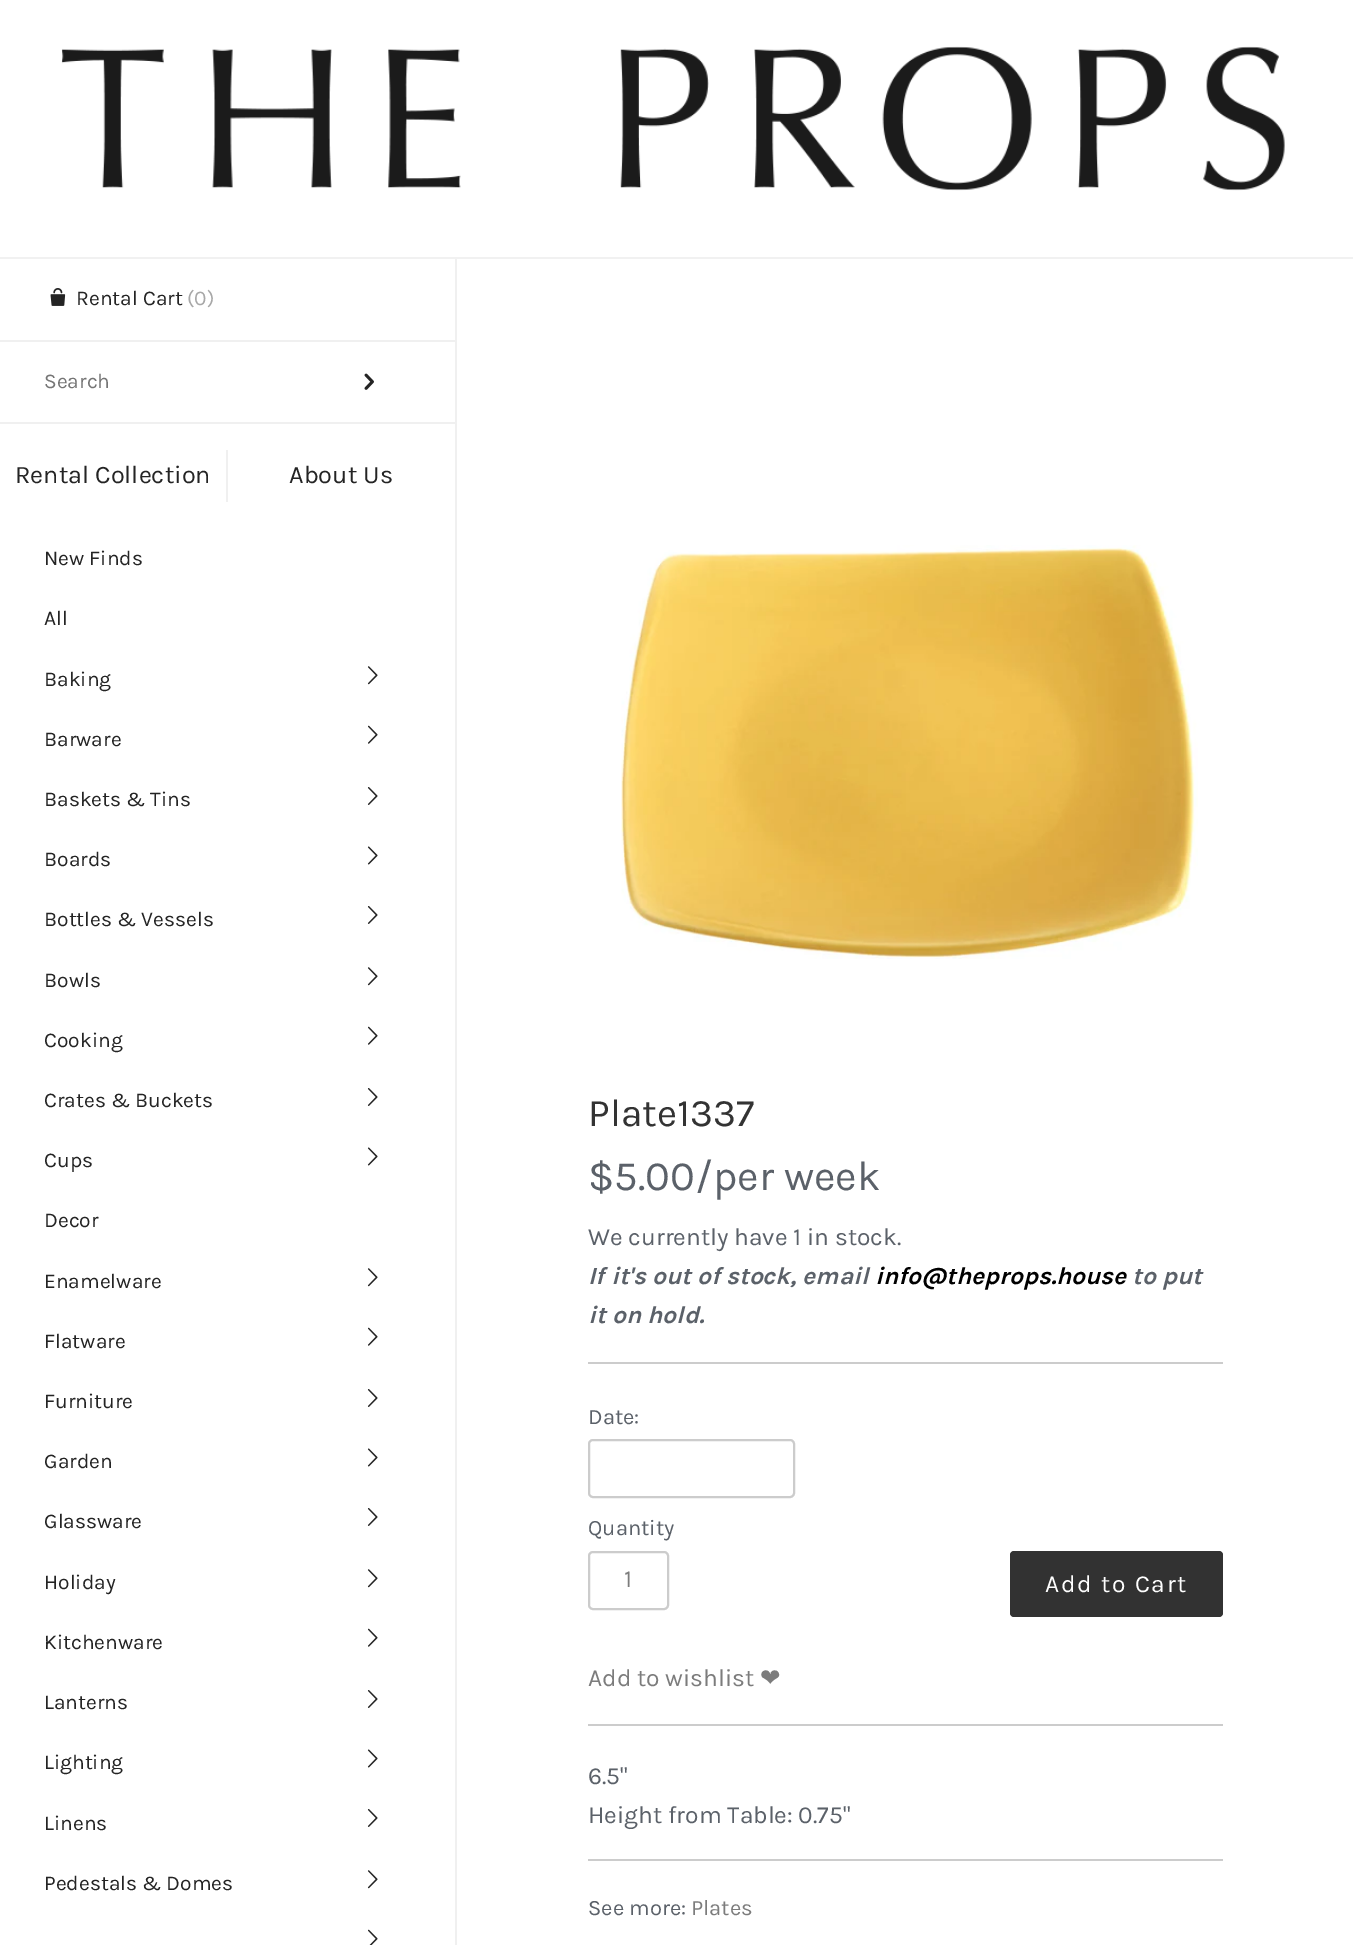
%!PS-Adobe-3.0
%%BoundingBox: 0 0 1353 1945
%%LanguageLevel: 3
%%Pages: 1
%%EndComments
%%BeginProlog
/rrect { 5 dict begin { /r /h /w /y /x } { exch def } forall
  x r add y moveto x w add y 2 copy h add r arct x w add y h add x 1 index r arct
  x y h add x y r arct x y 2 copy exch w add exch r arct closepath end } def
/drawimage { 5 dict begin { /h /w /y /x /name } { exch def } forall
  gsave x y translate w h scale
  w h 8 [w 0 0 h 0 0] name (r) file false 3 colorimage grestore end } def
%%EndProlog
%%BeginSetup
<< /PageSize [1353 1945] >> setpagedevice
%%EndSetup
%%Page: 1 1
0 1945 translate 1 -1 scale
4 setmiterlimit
1 setgray
0 0 1353 1945 rectfill
0.945 setgray
0 257 1353 2 rectfill
(images/1.raw) 61 46 1224 145 drawimage
0.941 setgray
455 259 2 1686 rectfill
(images/2.raw) 50 288 16 18 drawimage
0 340 455 2 rectfill
0 422 455 2 rectfill
(images/3.raw) 364 373 10 17 drawimage
226 450 2 52 rectfill
(images/4.raw) 367 666 11 19 drawimage
(images/5.raw) 368 725 10 19 drawimage
(images/6.raw) 367 787 11 18 drawimage
(images/7.raw) 367 846 11 19 drawimage
(images/6.raw) 367 906 11 18 drawimage
(images/4.raw) 367 967 11 19 drawimage
(images/5.raw) 368 1026 10 19 drawimage
(images/6.raw) 367 1088 11 18 drawimage
(images/7.raw) 367 1147 11 19 drawimage
(images/4.raw) 367 1268 11 19 drawimage
(images/5.raw) 368 1327 10 19 drawimage
(images/6.raw) 367 1389 11 18 drawimage
(images/7.raw) 367 1448 11 19 drawimage
(images/6.raw) 367 1508 11 18 drawimage
(images/4.raw) 367 1569 11 19 drawimage
(images/5.raw) 368 1628 10 19 drawimage
(images/6.raw) 367 1690 11 18 drawimage
(images/7.raw) 367 1749 11 19 drawimage
(images/6.raw) 367 1809 11 18 drawimage
(images/4.raw) 367 1870 11 19 drawimage
(images/8.raw) 368 1929 10 16 drawimage
(images/9.raw) 621 545 577 414 drawimage
0.8 setgray
588 1362 635 2 rectfill
2 setlinewidth
589 1440 205 57 4 rrect stroke
589 1552 79 57 4 rrect stroke
0.196 setgray
1010 1551 213 66 4 rrect fill
0.8 setgray
588 1724 635 2 rectfill
588 1859 635 2 rectfill
/Karla-Regular [21 0 0 -21 0 0] selectfont
0.141 setgray
76 305 moveto (Rental Cart) show
0.659 setgray
187 305 moveto (\(0\)) show
0.459 setgray
44 388 moveto (Search) show
/Karla-Regular [25.25 0 0 -25.25 0 0] selectfont
0.141 setgray
15 483 moveto (Rental Collection) show
/Karla-Regular [21 0 0 -21 0 0] selectfont
44 565 moveto (New Finds) show
44 625 moveto (All) show
44 686 moveto (Baking) show
44 746 moveto (Barware) show
44 806 moveto (Baskets & Tins) show
44 866 moveto (Boards) show
44 926 moveto (Bottles & Vessels) show
44 987 moveto (Bowls) show
44 1047 moveto (Cooking) show
44 1107 moveto (Crates & Buckets) show
44 1167 moveto (Cups) show
44 1227 moveto (Decor) show
44 1288 moveto (Enamelware) show
44 1348 moveto (Flatware) show
44 1408 moveto (Furniture) show
44 1468 moveto (Garden) show
44 1528 moveto (Glassware) show
44 1589 moveto (Holiday) show
44 1649 moveto (Kitchenware) show
44 1709 moveto (Lanterns) show
44 1769 moveto (Lighting) show
44 1830 moveto (Linens) show
44 1890 moveto (Pedestals & Domes) show
/Karla-Regular [25.25 0 0 -25.25 0 0] selectfont
289 483 moveto (About Us) show
/Karla-Regular [39 0 0 -39 0 0] selectfont
0.2 setgray
588 1126 moveto (Plate1337) show
/Karla-Regular [41.75 0 0 -41.75 0 0] selectfont
0.357 0.38 0.412 setrgbcolor
588 1190 moveto ($5.00/per week) show
/Karla-Regular [24.5 0 0 -24.5 0 0] selectfont
588 1245 moveto (We currently have 1 in stock.) show
/Karla-BoldItalic [24.5 0 0 -24.5 0 0] selectfont
588 1284 moveto (If it's out of stock, email) show
0 setgray
875 1284 moveto (info@theprops.house) show
0.357 0.38 0.412 setrgbcolor
1132 1284 moveto (to put) show
588 1323 moveto (it on hold.) show
/Karla-Regular [22 0 0 -22 0 0] selectfont
588 1424 moveto (Date:) show
588 1535 moveto (Quantity) show
/Karla-Regular [24.5 0 0 -24.5 0 0] selectfont
0.486 setgray
624 1587 moveto (1) show
1 setgray
1045 1592 moveto 1.75 0 (Add to Cart) ashow
0.486 setgray
588 1686 moveto (Add to wishlist) show
/DejaVuSans-Regular [24.5 0 0 -24.5 0 0] selectfont
760 1686 moveto (❤) show
/Karla-Regular [24.5 0 0 -24.5 0 0] selectfont
0.357 0.38 0.412 setrgbcolor
588 1784 moveto (6.5") show
588 1823 moveto (Height from Table: 0.75") show
/Karla-Regular [22 0 0 -22 0 0] selectfont
588 1915 moveto (See more:) show
0.486 setgray
691 1915 moveto (Plates) show
showpage
%%EOF
